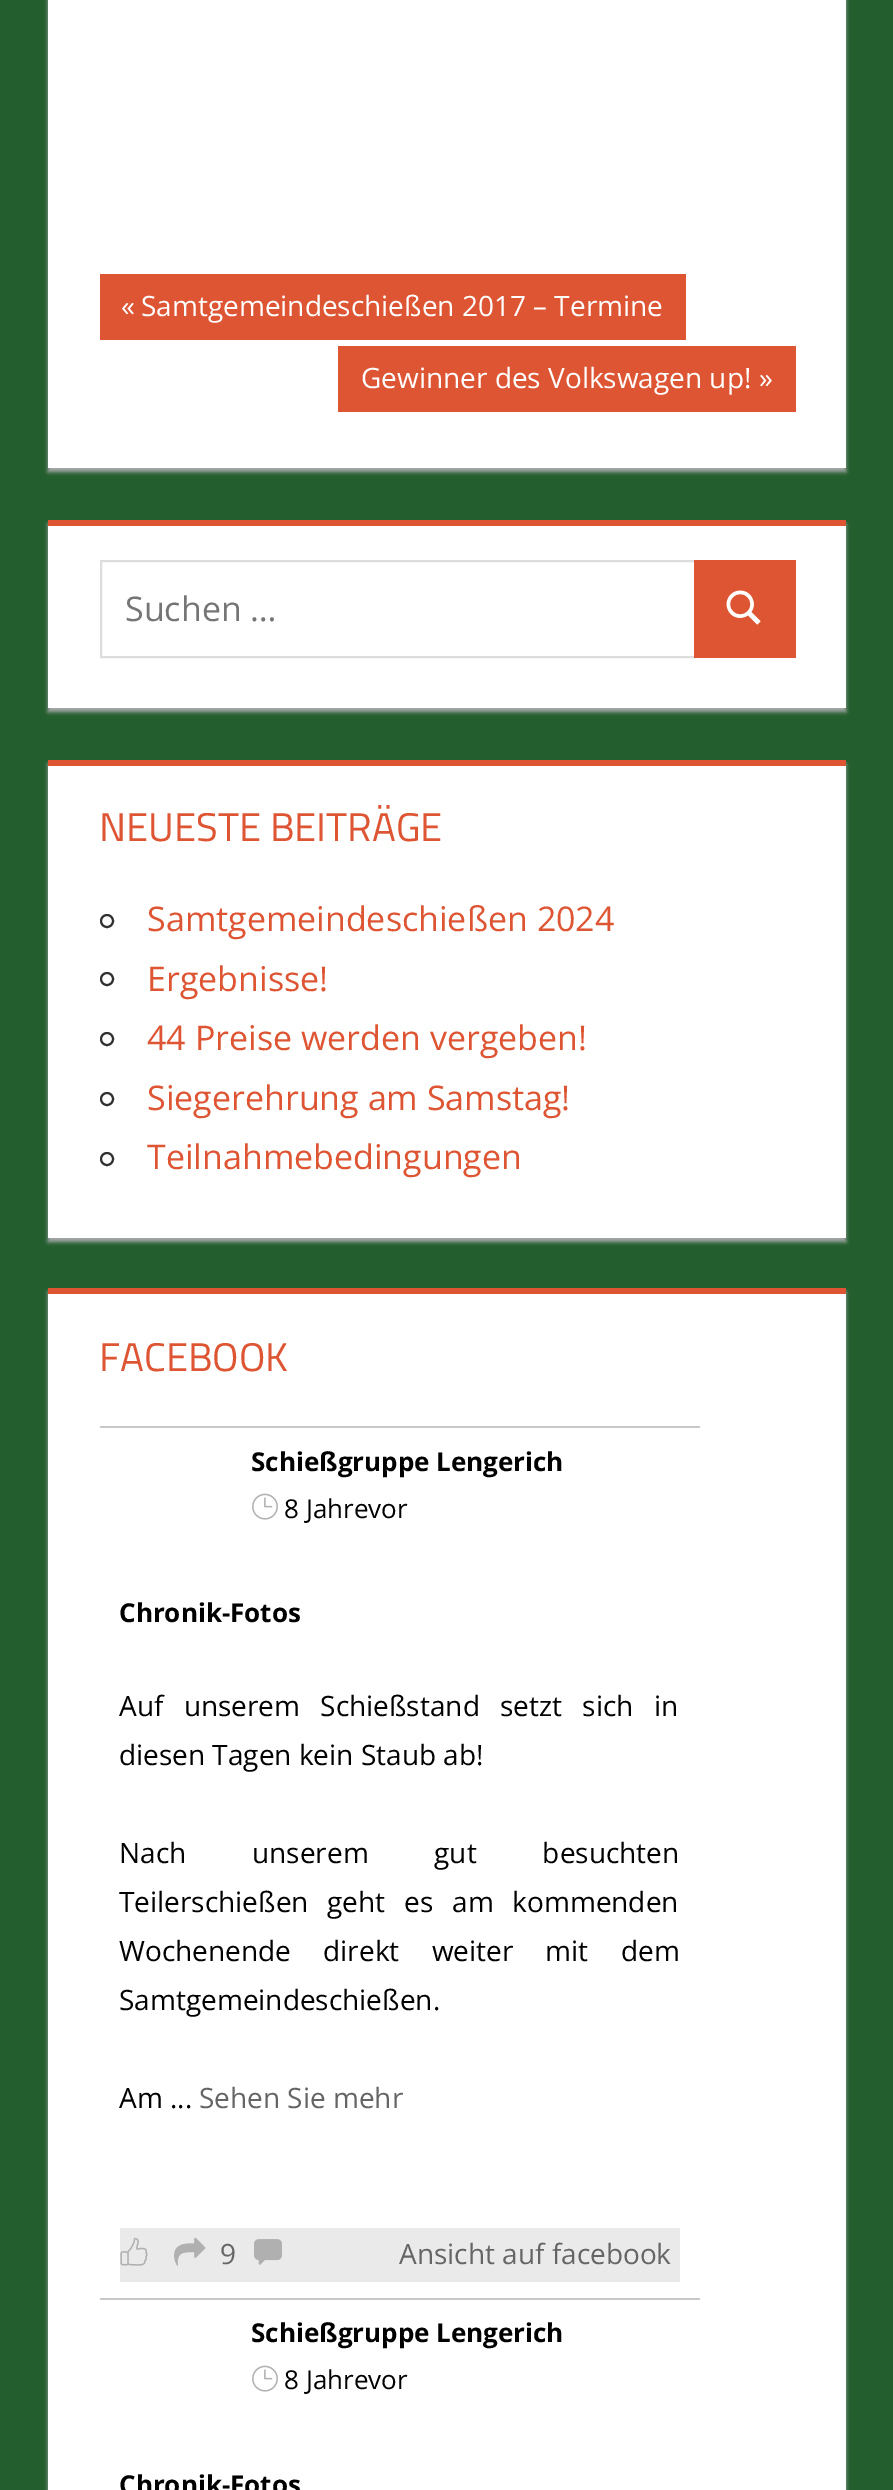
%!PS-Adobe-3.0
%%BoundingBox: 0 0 893 2490
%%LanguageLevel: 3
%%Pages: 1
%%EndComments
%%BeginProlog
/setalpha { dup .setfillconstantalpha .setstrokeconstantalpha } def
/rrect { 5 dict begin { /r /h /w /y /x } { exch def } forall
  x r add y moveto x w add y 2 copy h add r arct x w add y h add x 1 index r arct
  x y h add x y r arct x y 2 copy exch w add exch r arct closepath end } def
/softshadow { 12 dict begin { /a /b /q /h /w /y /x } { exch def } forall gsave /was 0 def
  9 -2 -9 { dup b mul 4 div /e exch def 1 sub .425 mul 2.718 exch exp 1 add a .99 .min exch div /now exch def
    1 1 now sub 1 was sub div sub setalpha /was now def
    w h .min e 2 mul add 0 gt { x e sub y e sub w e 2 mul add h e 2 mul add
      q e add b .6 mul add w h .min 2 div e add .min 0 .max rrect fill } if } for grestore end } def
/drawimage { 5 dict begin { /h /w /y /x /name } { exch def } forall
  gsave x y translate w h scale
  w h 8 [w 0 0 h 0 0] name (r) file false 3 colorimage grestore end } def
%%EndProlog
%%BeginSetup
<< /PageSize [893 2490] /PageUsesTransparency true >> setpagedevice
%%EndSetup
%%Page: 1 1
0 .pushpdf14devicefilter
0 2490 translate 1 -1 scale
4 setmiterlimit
0.137 0.369 0.18 setrgbcolor
0 0 893 2490 rectfill
0.667 setgray
48 -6 798 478 0 2 1 softshadow
1 setgray
48 0 798 468 rectfill
0.867 0.333 0.2 setrgbcolor
100 274 586 66 rectfill
338 346 458 66 rectfill
0.667 setgray
48 524 798 188 0 2 1 softshadow
1 setgray
48 526 798 182 rectfill
0.867 0.333 0.2 setrgbcolor
48 520 798 6 rectfill
0.867 setgray
2 setlinewidth
101 561 594 96 rectstroke
0.867 0.333 0.2 setrgbcolor
694 560 102 98 rectfill
(images/1.raw) 726 590 35 35 drawimage
0.667 setgray
48 764 798 478 0 2 1 softshadow
1 setgray
48 766 798 472 rectfill
0.867 0.333 0.2 setrgbcolor
48 760 798 6 rectfill
0.188 setgray
newpath 107 921 6 0 360 arc closepath stroke
newpath 107 979 6 0 360 arc closepath stroke
newpath 107 1039 6 0 360 arc closepath stroke
newpath 107 1099 6 0 360 arc closepath stroke
newpath 107 1159 6 0 360 arc closepath stroke
0.667 setgray
48 1292 798 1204 0 2 1 softshadow
1 setgray
48 1294 798 1196 rectfill
0.867 0.333 0.2 setrgbcolor
48 1288 798 6 rectfill
0.788 setgray
100 1426 600 2 rectfill
(images/2.raw) 252 1493 26 27 drawimage
0.918 setgray
120 2228 560 52 rectfill
0.91 setgray
120 2280 560 2 rectfill
(images/3.raw) 120 2237 28 29 drawimage
(images/4.raw) 174 2237 32 29 drawimage
(images/5.raw) 254 2239 28 26 drawimage
0.788 setgray
100 2298 600 2 rectfill
(images/2.raw) 252 2365 26 27 drawimage
/OpenSans-Regular [28 0 0 -28 0 0] selectfont
1 setgray
121 316 moveto («) show
141 316 moveto (Samtgemeindeschießen 2017 – Termine) show
361 388 moveto (Gewinner des Volkswagen up!) show
759 388 moveto (») show
/OpenSans-Regular [34 0 0 -34 0 0] selectfont
0.459 setgray
125 621 moveto (Suchen …) show
/TitilliumWeb-Regular [40 0 0 -40 0 0] selectfont
0.867 0.333 0.2 setrgbcolor
99 841 moveto (NEUESTE BEITRÄGE) show
/OpenSans-Regular [34 0 0 -34 0 0] selectfont
147 931 moveto (Samtgemeindeschießen 2024) show
147 991 moveto (Ergebnisse!) show
147 1050 moveto (44 Preise werden vergeben!) show
147 1110 moveto (Siegerehrung am Samstag!) show
147 1169 moveto (Teilnahmebedingungen) show
/TitilliumWeb-Regular [40 0 0 -40 0 0] selectfont
99 1371 moveto (FACEBOOK) show
/OpenSans-Bold [26 0 0 -26 0 0] selectfont
0 setgray
251 1471 moveto (Schießgruppe Lengerich) show
/OpenSans-Regular [26 0 0 -26 0 0] selectfont
284 1518 moveto (8 Jahrevor) show
/OpenSans-Bold [26 0 0 -26 0 0] selectfont
119 1622 moveto (Chronik-Fotos) show
/OpenSans-Regular [28 0 0 -28 0 0] selectfont
119 1716 moveto 13 0 32 (Auf unserem Schießstand setzt sich in) widthshow
119 1765 moveto (diesen Tagen kein Staub ab!) show
119 1863 moveto 58.5 0 32 (Nach unserem gut besuchten) widthshow
119 1912 moveto 11.5 0 32 (Teilerschießen geht es am kommenden) widthshow
119 1961 moveto 25 0 32 (Wochenende direkt weiter mit dem) widthshow
119 2010 moveto (Samtgemeindeschießen.) show
119 2108 moveto (Am ...) show
0.396 setgray
199 2108 moveto (Sehen Sie mehr) show
220 2264 moveto (9) show
399 2264 moveto (Ansicht auf facebook) show
/OpenSans-Bold [26 0 0 -26 0 0] selectfont
0 setgray
251 2342 moveto (Schießgruppe Lengerich) show
/OpenSans-Regular [26 0 0 -26 0 0] selectfont
284 2389 moveto (8 Jahrevor) show
/OpenSans-Bold [26 0 0 -26 0 0] selectfont
119 2494 moveto (Chronik-Fotos) show
.poppdf14devicefilter showpage
%%EOF
